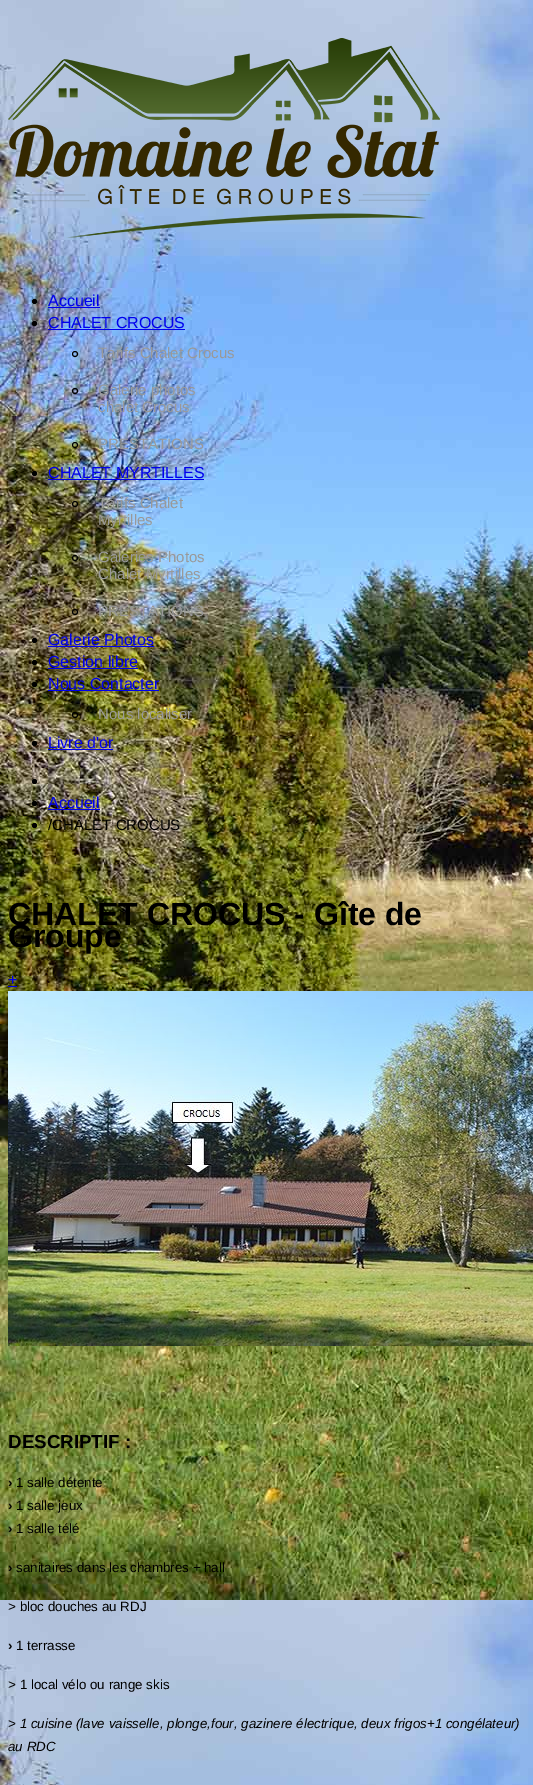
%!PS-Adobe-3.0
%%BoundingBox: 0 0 533 1785
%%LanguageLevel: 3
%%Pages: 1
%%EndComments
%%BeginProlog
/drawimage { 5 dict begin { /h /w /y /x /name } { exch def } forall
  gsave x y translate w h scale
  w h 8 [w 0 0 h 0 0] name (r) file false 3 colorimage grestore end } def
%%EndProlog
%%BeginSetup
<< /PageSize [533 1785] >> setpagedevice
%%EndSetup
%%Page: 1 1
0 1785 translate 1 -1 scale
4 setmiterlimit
1 setgray
0 0 533 1785 rectfill
(images/1.raw) 0 0 533 1785 drawimage
(images/2.raw) 8 38 432 200 drawimage
0 setgray
newpath 34.5 301.5 2.5 0 360 arc closepath fill
0 0 0.933 setrgbcolor
48 307 52 1 rectfill
0 setgray
newpath 34.5 323.5 2.5 0 360 arc closepath fill
0 0 0.933 setrgbcolor
48 329 137 1 rectfill
0 setgray
newpath 75 354 2.5 0 360 arc closepath stroke
newpath 75 391 2.5 0 360 arc closepath stroke
newpath 75 445 2.5 0 360 arc closepath stroke
newpath 34.5 473.5 2.5 0 360 arc closepath fill
0 0 0.933 setrgbcolor
48 479 156 1 rectfill
0 setgray
newpath 75 504 2.5 0 360 arc closepath stroke
newpath 75 558 2.5 0 360 arc closepath stroke
newpath 75 612 2.5 0 360 arc closepath stroke
newpath 34.5 640.5 2.5 0 360 arc closepath fill
0 0 0.933 setrgbcolor
48 646 106 1 rectfill
0 setgray
newpath 34.5 662.5 2.5 0 360 arc closepath fill
0 0 0.933 setrgbcolor
48 668 90 1 rectfill
0 setgray
newpath 34.5 684.5 2.5 0 360 arc closepath fill
0 0 0.933 setrgbcolor
48 690 111 1 rectfill
0 setgray
newpath 75 715 2.5 0 360 arc closepath stroke
newpath 34.5 743.5 2.5 0 360 arc closepath fill
0 0 0.933 setrgbcolor
48 749 65 1 rectfill
0 setgray
newpath 34.5 781.5 2.5 0 360 arc closepath fill
newpath 34.5 803.5 2.5 0 360 arc closepath fill
0 0 0.933 setrgbcolor
48 809 52 1 rectfill
0 setgray
newpath 34.5 825.5 2.5 0 360 arc closepath fill
0 0 0.933 setrgbcolor
8 986 9 1 rectfill
(images/3.raw) 8 991 525 355 drawimage
/LiberationSans-Regular [16 0 0 -16 0 0] selectfont
48 306 moveto (Accueil) show
48 328 moveto (CHALET CROCUS) show
/LiberationSans-Regular [15 0 0 -15 0 0] selectfont
0.6 setgray
98 358 moveto (Tarifs Chalet Crocus) show
98 395 moveto (Galerie photos) show
98 412 moveto (chalet Crocus) show
98 449 moveto (PRESTATIONS) show
/LiberationSans-Regular [16 0 0 -16 0 0] selectfont
0 0 0.933 setrgbcolor
48 478 moveto (CHALET MYRTILLES) show
/LiberationSans-Regular [15 0 0 -15 0 0] selectfont
0.6 setgray
98 508 moveto (Tarifs Chalet) show
98 525 moveto (Myrtilles) show
98 562 moveto (Galeries Photos) show
98 579 moveto (Chalet Myrtilles) show
98 616 moveto (PRESTATIONS) show
/LiberationSans-Regular [16 0 0 -16 0 0] selectfont
0 0 0.933 setrgbcolor
48 645 moveto (Galerie Photos) show
48 667 moveto (Gestion libre) show
48 689 moveto (Nous Contacter) show
/LiberationSans-Regular [15 0 0 -15 0 0] selectfont
0.6 setgray
98 719 moveto (Nous localiser) show
/LiberationSans-Regular [16 0 0 -16 0 0] selectfont
0 0 0.933 setrgbcolor
48 748 moveto (Livre d'or) show
48 808 moveto (Accueil) show
/LiberationSans-Regular [15 0 0 -15 0 0] selectfont
0 setgray
48 830 moveto (/CHALET CROCUS) show
/LiberationSans-Bold [32 0 0 -32 0 0] selectfont
8 925 moveto (CHALET CROCUS - Gîte de) show
8 947 moveto (Groupe) show
/LiberationSans-Regular [16 0 0 -16 0 0] selectfont
0 0 0.933 setrgbcolor
8 985 moveto (+) show
/LiberationSans-Bold [18.75 0 0 -18.75 0 0] selectfont
0 setgray
8 1448 moveto (DESCRIPTIF :) show
/LiberationSans-Bold [13.35 0 0 -13.35 0 0] selectfont
8 1487 moveto (›) show
/LiberationSans-Regular [13.35 0 0 -13.35 0 0] selectfont
16 1487 moveto (1 salle détente) show
/LiberationSans-Bold [13.35 0 0 -13.35 0 0] selectfont
8 1510 moveto (›) show
/LiberationSans-Regular [13.35 0 0 -13.35 0 0] selectfont
16 1510 moveto (1 salle jeux) show
/LiberationSans-Bold [13.35 0 0 -13.35 0 0] selectfont
8 1533 moveto (›) show
/LiberationSans-Regular [13.35 0 0 -13.35 0 0] selectfont
16 1533 moveto (1 salle télé) show
/LiberationSans-Bold [13.35 0 0 -13.35 0 0] selectfont
8 1572 moveto (›) show
/LiberationSans-Regular [13.35 0 0 -13.35 0 0] selectfont
16 1572 moveto (sanitaires dans les chambres + hall) show
8 1611 moveto (> bloc douches au RDJ) show
/LiberationSans-Bold [13.35 0 0 -13.35 0 0] selectfont
8 1650 moveto (›) show
/LiberationSans-Regular [13.35 0 0 -13.35 0 0] selectfont
16 1650 moveto (1 terrasse) show
8 1689 moveto (> 1 local vélo ou range skis) show
/LiberationSans-Italic [13.35 0 0 -13.35 0 0] selectfont
8 1728 moveto (> 1 cuisine \(lave vaisselle, plonge,four, gazinere électrique, deux frigos+1 congélateur\)) show
8 1751 moveto (au RDC) show
showpage
%%EOF
